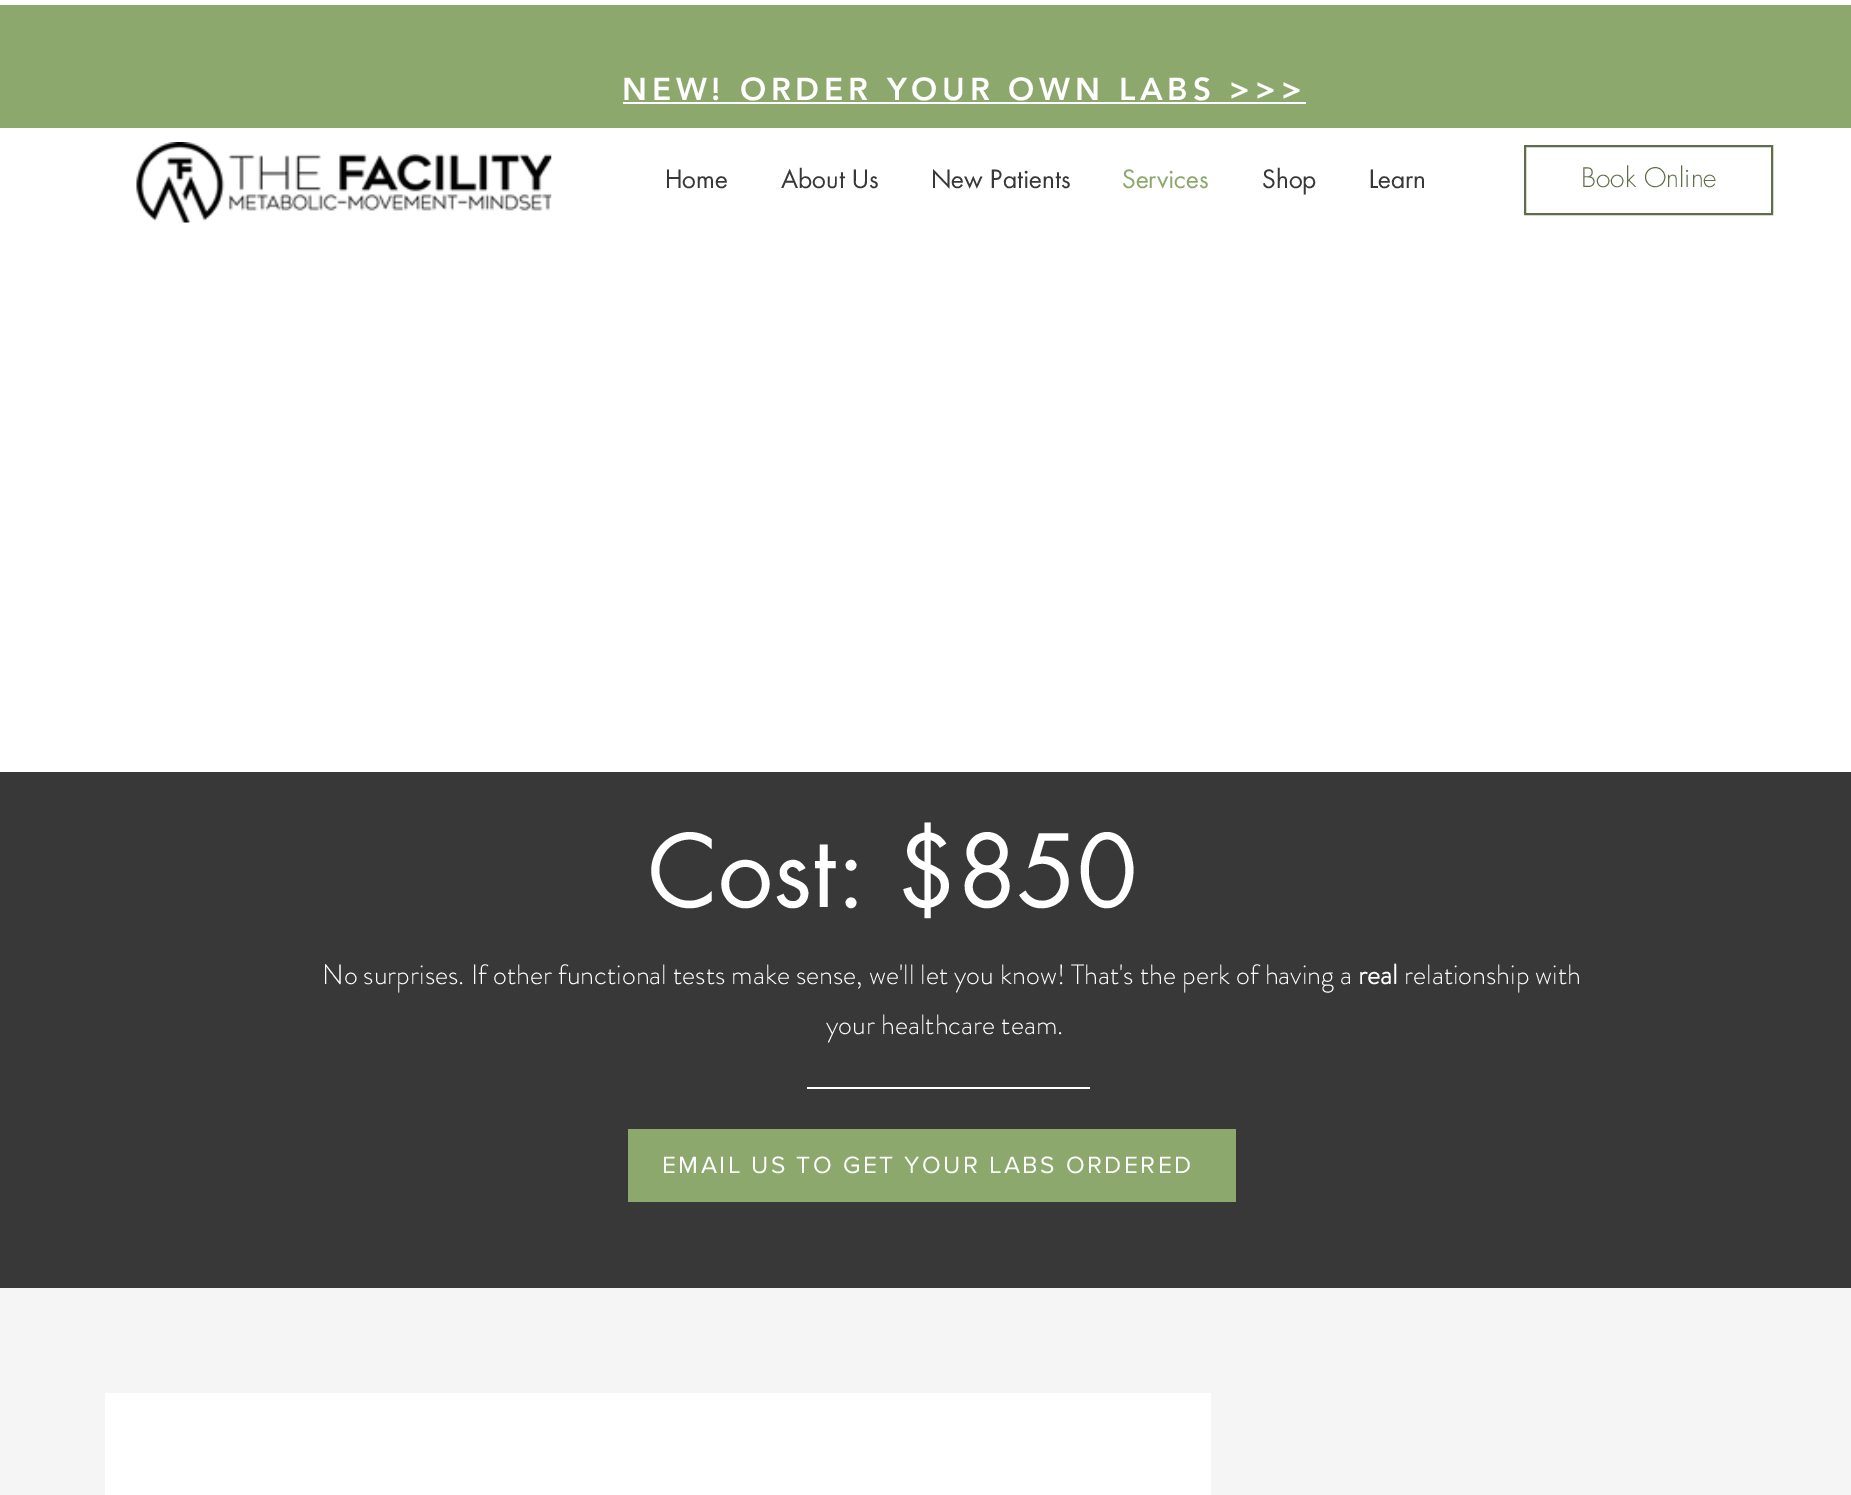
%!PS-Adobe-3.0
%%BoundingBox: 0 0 1851 1495
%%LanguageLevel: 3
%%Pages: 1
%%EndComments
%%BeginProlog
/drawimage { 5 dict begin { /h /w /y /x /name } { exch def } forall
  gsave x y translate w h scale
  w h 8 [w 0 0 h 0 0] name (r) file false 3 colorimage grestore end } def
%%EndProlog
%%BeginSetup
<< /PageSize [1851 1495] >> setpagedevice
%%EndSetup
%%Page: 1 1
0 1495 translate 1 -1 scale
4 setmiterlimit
0.961 setgray
0 0 1851 1495 rectfill
1 setgray
0 0 1851 772 rectfill
0.553 0.659 0.427 setrgbcolor
0 5 1851 123 rectfill
1 setgray
623 102 683 2 rectfill
(images/1.raw) 136 142 416 81 drawimage
0.369 0.431 0.294 setrgbcolor
2 setlinewidth
1525 146 247 68 rectstroke
0.22 setgray
0 772 1851 516 rectfill
1 setgray
807 1087 283 2 rectfill
0.553 0.659 0.427 setrgbcolor
628 1129 608 73 rectfill
1 setgray
105 1393 1106 102 rectfill
/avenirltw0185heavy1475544-Black [31.5 0 0 -31.5 0 0] selectfont
622 100 moveto 4.75 0 (NEW! ORDER YOUR OWN LABS >>>) ashow
/futura-Regular [24.5 0 0 -24.5 0 0] selectfont
0.22 setgray
665 188 moveto (Home) show
781 188 moveto (About Us) show
931 188 moveto (New Patients) show
0.553 0.659 0.427 setrgbcolor
1122 188 moveto (Services) show
0.22 setgray
1262 188 moveto (Shop) show
1369 188 moveto (Learn) show
/futura-Light [26.25 0 0 -26.25 0 0] selectfont
0.369 0.431 0.294 setrgbcolor
1581 187 moveto (Book Online) show
/futura-Regular [98 0 0 -98 0 0] selectfont
1 setgray
648 907 moveto (Cost: $850) show
/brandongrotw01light-Light [28 0 0 -28 0 0] selectfont
322 984 moveto (No surprises. If other functional tests make sense, we'll let you know! That's the perk of having a) show
/brandongrotw01light-Bold [28 0 0 -28 0 0] selectfont
1358 984 moveto (real) show
/brandongrotw01light-Light [28 0 0 -28 0 0] selectfont
1404 984 moveto (relationship with) show
826 1034 moveto (your healthcare team.) show
/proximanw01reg-Regular [24.5 0 0 -24.5 0 0] selectfont
662 1173 moveto 2.45 0 (EMAIL US TO GET YOUR LABS ORDERED) ashow
showpage
%%EOF
